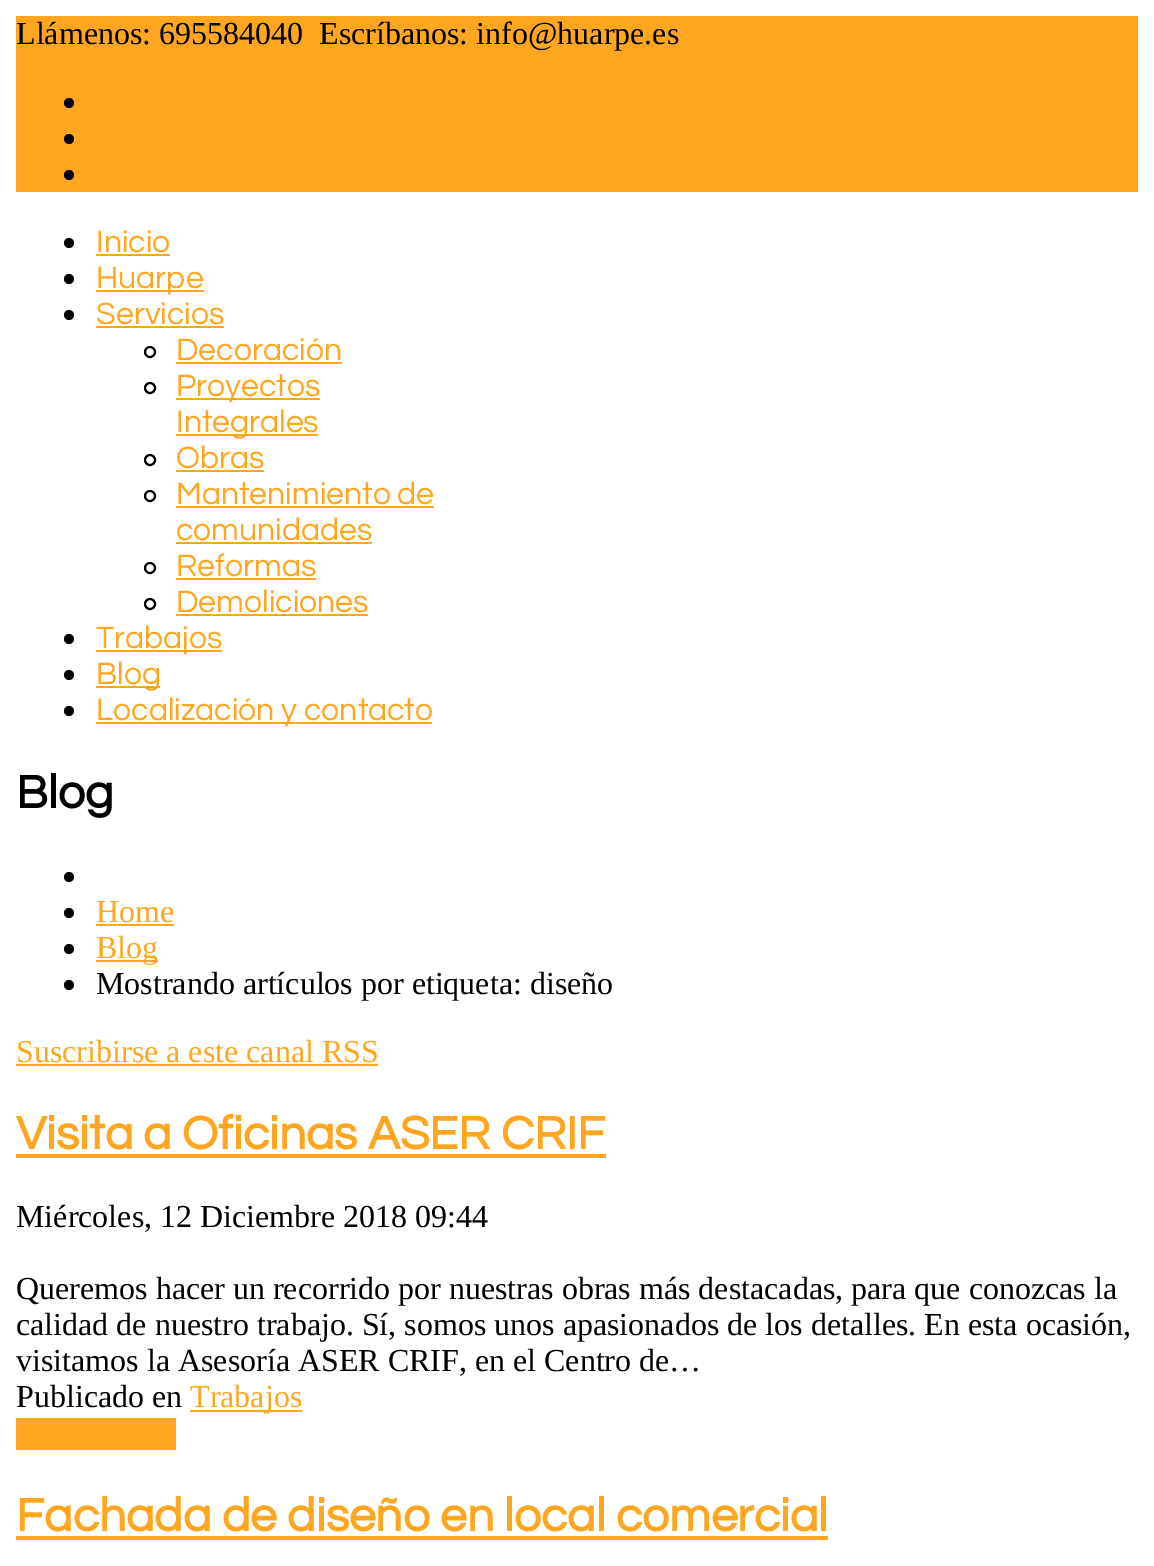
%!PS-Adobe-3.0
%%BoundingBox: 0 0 1154 1566
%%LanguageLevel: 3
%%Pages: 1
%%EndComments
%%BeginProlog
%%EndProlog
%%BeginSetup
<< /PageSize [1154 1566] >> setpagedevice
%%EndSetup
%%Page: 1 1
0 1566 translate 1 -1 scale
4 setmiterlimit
1 setgray
0 0 1154 1566 rectfill
1 0.651 0.129 setrgbcolor
16 16 1122 176 rectfill
0 setgray
newpath 69 103 5 0 360 arc closepath fill
newpath 69 139 5 0 360 arc closepath fill
newpath 69 175 5 0 360 arc closepath fill
newpath 69 243 5 0 360 arc closepath fill
1 0.651 0.129 setrgbcolor
96 254 74 2 rectfill
0 setgray
newpath 69 279 5 0 360 arc closepath fill
1 0.651 0.129 setrgbcolor
96 290 108 2 rectfill
0 setgray
newpath 69 315 5 0 360 arc closepath fill
1 0.651 0.129 setrgbcolor
96 326 128 2 rectfill
0 setgray
2 setlinewidth
newpath 150 352 5 0 360 arc closepath stroke
1 0.651 0.129 setrgbcolor
176 362 166 2 rectfill
0 setgray
newpath 150 388 5 0 360 arc closepath stroke
1 0.651 0.129 setrgbcolor
176 398 144 2 rectfill
176 434 142 2 rectfill
0 setgray
newpath 150 460 5 0 360 arc closepath stroke
1 0.651 0.129 setrgbcolor
176 470 88 2 rectfill
0 setgray
newpath 150 496 5 0 360 arc closepath stroke
1 0.651 0.129 setrgbcolor
176 506 258 2 rectfill
176 542 196 2 rectfill
0 setgray
newpath 150 568 5 0 360 arc closepath stroke
1 0.651 0.129 setrgbcolor
176 578 140 2 rectfill
0 setgray
newpath 150 604 5 0 360 arc closepath stroke
1 0.651 0.129 setrgbcolor
176 614 192 2 rectfill
0 setgray
newpath 69 639 5 0 360 arc closepath fill
1 0.651 0.129 setrgbcolor
96 650 126 2 rectfill
0 setgray
newpath 69 675 5 0 360 arc closepath fill
1 0.651 0.129 setrgbcolor
96 686 64 2 rectfill
0 setgray
newpath 69 711 5 0 360 arc closepath fill
1 0.651 0.129 setrgbcolor
96 722 336 2 rectfill
0 setgray
newpath 69 877 5 0 360 arc closepath fill
newpath 69 913 5 0 360 arc closepath fill
1 0.651 0.129 setrgbcolor
96 924 78 2 rectfill
0 setgray
newpath 69 949 5 0 360 arc closepath fill
1 0.651 0.129 setrgbcolor
96 960 62 2 rectfill
0 setgray
newpath 69 985 5 0 360 arc closepath fill
1 0.651 0.129 setrgbcolor
16 1064 362 2 rectfill
16 1154 590 4 rectfill
190 1410 112 2 rectfill
16 1418 160 32 rectfill
16 1536 812 4 rectfill
/LiberationSerif-Regular [32 0 0 -32 0 0] selectfont
0 setgray
16 44 moveto (Llámenos: 695584040) show
319 44 moveto (Escríbanos: info@huarpe.es) show
/Questrial-Regular [32 0 0 -32 0 0] selectfont
1 0.651 0.129 setrgbcolor
96 252 moveto (Inicio) show
96 288 moveto (Huarpe) show
96 324 moveto (Servicios) show
176 360 moveto (Decoración) show
176 396 moveto (Proyectos) show
176 432 moveto (Integrales) show
176 468 moveto (Obras) show
176 504 moveto (Mantenimiento de) show
176 540 moveto (comunidades) show
176 576 moveto (Reformas) show
176 612 moveto (Demoliciones) show
96 648 moveto (Trabajos) show
96 684 moveto (Blog) show
96 720 moveto (Localización y contacto) show
/Questrial-Bold [48 0 0 -48 0 0] selectfont
0 setgray
16 808 moveto (Blog) show
/LiberationSerif-Regular [32 0 0 -32 0 0] selectfont
1 0.651 0.129 setrgbcolor
96 922 moveto (Home) show
96 958 moveto (Blog) show
0 setgray
96 994 moveto (Mostrando artículos por etiqueta: diseño) show
1 0.651 0.129 setrgbcolor
16 1062 moveto (Suscribirse a este canal RSS) show
/Questrial-Bold [48 0 0 -48 0 0] selectfont
16 1149 moveto (Visita a Oficinas ASER CRIF) show
/LiberationSerif-Regular [32 0 0 -32 0 0] selectfont
0 setgray
16 1227 moveto (Miércoles, 12 Diciembre 2018 09:44) show
16 1299 moveto (Queremos hacer un recorrido por nuestras obras más destacadas, para que conozcas la) show
16 1335 moveto (calidad de nuestro trabajo. Sí, somos unos apasionados de los detalles. En esta ocasión,) show
16 1371 moveto (visitamos la Asesoría ASER CRIF, en el Centro de…) show
16 1407 moveto (Publicado en) show
1 0.651 0.129 setrgbcolor
190 1407 moveto (Trabajos) show
/Questrial-Bold [48 0 0 -48 0 0] selectfont
16 1531 moveto (Fachada de diseño en local comercial) show
showpage
%%EOF
